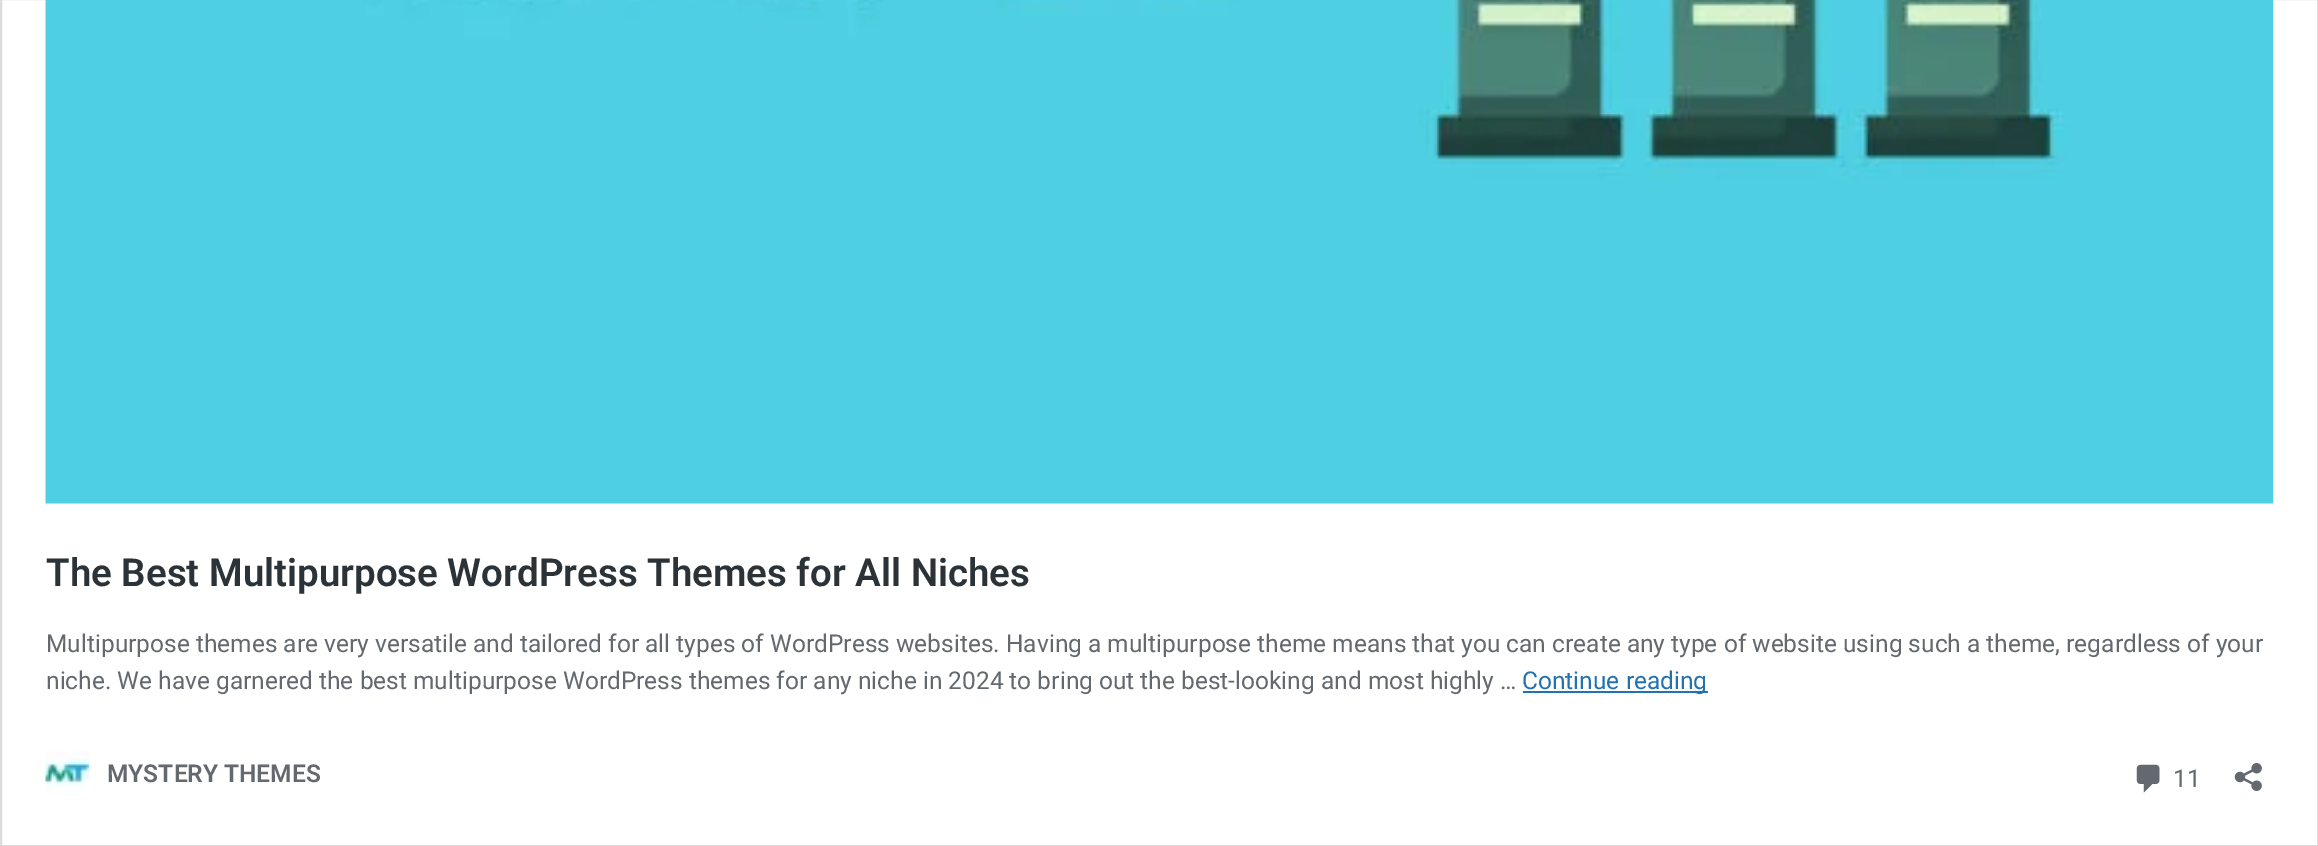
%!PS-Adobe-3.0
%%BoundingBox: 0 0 2318 846
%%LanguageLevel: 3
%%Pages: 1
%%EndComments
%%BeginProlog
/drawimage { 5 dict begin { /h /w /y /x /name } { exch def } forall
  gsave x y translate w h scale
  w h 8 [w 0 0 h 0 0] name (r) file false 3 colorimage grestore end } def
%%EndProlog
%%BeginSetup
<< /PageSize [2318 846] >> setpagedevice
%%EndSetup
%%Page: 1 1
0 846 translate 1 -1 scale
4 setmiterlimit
1 setgray
0 0 2318 846 rectfill
0.863 0.863 0.871 setrgbcolor
2 setlinewidth
1 -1 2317 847 rectstroke
(images/1.raw) 45 0 2229 504 drawimage
0.133 0.443 0.694 setrgbcolor
1523 691 185 2 rectfill
(images/2.raw) 45 751 45 44 drawimage
(images/3.raw) 2136 764 24 29 drawimage
(images/4.raw) 2234 763 28 28 drawimage
/Roboto-SemiBold [38.5 0 0 -38.5 0 0] selectfont
0.173 0.2 0.22 setrgbcolor
46 586 moveto (The Best Multipurpose WordPress Themes for All Niches) show
/Roboto-Regular [24.5 0 0 -24.5 0 0] selectfont
0.392 0.412 0.439 setrgbcolor
46 652 moveto (Multipurpose themes are very versatile and tailored for all types of WordPress websites. Having a multipurpose theme means that you can create any type of website using such a theme, regardless of your) show
46 689 moveto (niche. We have garnered the best multipurpose WordPress themes for any niche in 2024 to bring out the best-looking and most highly …) show
0.133 0.443 0.694 setrgbcolor
1522 689 moveto (Continue reading) show
/Roboto-SemiBold [24.5 0 0 -24.5 0 0] selectfont
0.392 0.412 0.439 setrgbcolor
107 782 moveto (MYSTERY THEMES) show
/Roboto-Regular [24.5 0 0 -24.5 0 0] selectfont
2173 787 moveto (11) show
showpage
%%EOF
